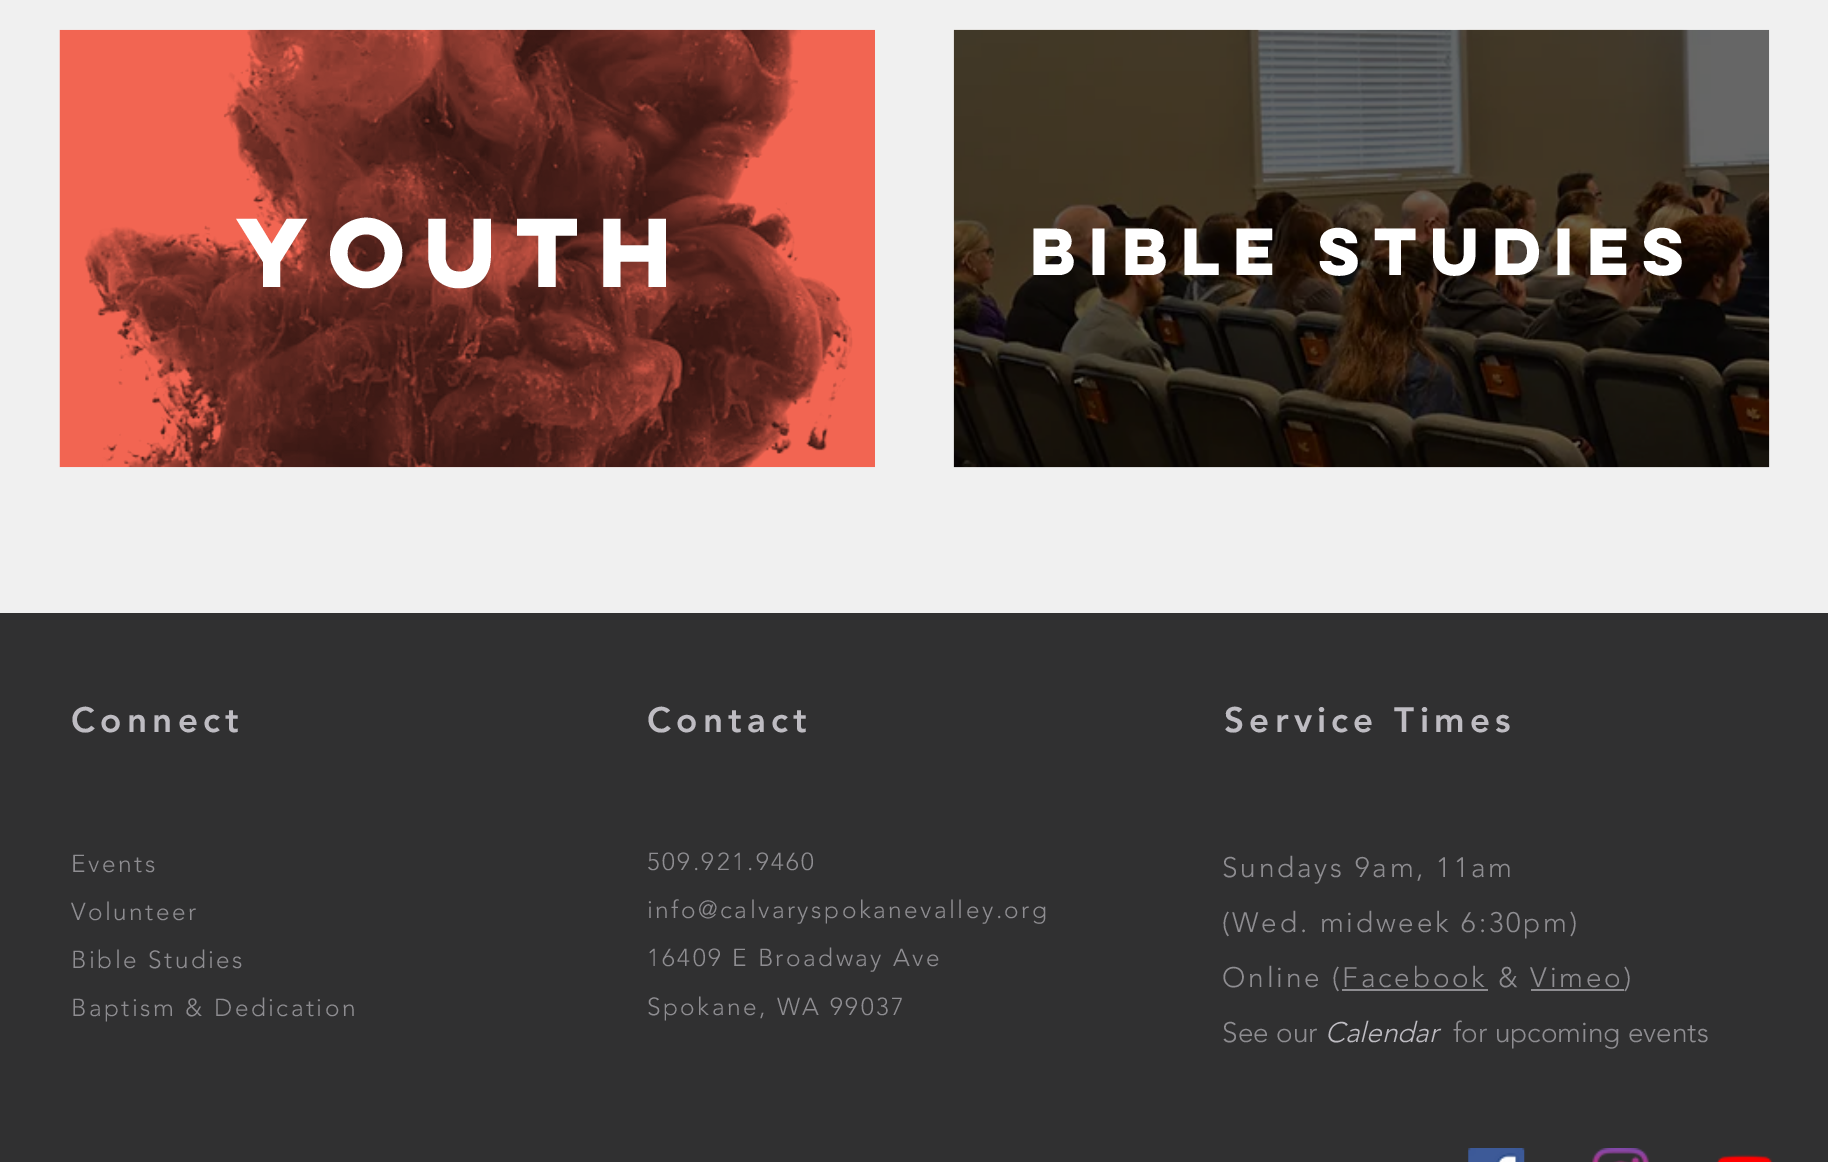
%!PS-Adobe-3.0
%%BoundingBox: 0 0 1828 1162
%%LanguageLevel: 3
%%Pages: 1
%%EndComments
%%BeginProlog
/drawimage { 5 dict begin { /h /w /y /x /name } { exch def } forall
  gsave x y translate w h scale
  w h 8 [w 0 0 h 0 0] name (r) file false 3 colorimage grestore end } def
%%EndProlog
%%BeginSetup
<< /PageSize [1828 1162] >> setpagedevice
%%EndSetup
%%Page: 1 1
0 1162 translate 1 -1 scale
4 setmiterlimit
0.941 setgray
0 0 1828 1162 rectfill
(images/1.raw) 59 29 816 439 drawimage
(images/2.raw) 953 29 817 439 drawimage
0.188 0.188 0.192 setrgbcolor
0 613 1828 549 rectfill
0.557 0.553 0.569 setrgbcolor
1342 989 146 2 rectfill
1531 989 93 2 rectfill
(images/3.raw) 1468 1148 57 14 drawimage
(images/4.raw) 1592 1148 57 14 drawimage
(images/5.raw) 1716 1154 57 8 drawimage
/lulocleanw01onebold-Bold [87.5 0 0 -87.5 0 0] selectfont
1 setgray
236 287 moveto (YOUTH) show
/lulocleanw01onebold-Bold [59.5 0 0 -59.5 0 0] selectfont
1030 275 moveto (Bible Studies) show
/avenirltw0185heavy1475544-Black [35 0 0 -35 0 0] selectfont
0.745 0.737 0.761 setrgbcolor
71 732 moveto 5.25 0 (Connect) ashow
647 732 moveto 5.25 0 (Contact) ashow
1224 732 moveto 5.25 0 (Service Times) ashow
/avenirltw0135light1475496-Light [24.5 0 0 -24.5 0 0] selectfont
0.557 0.553 0.569 setrgbcolor
71 872 moveto 2.45 0 (Events) ashow
71 920 moveto 2.45 0 (Volunteer) ashow
71 968 moveto 2.45 0 (Bible Studies) ashow
71 1016 moveto 2.45 0 (Baptism & Dedication) ashow
647 870 moveto 2.45 0 (509.921.9460) ashow
647 918 moveto 2.45 0 (info@calvaryspokanevalley.org) ashow
647 966 moveto 2.45 0 (16409 E Broadway Ave) ashow
647 1015 moveto 2.45 0 (Spokane, WA 99037) ashow
/avenirltw0135light1475496-Light [28 0 0 -28 0 0] selectfont
1222 877 moveto 2.8 0 (Sundays 9am, 11am) ashow
1222 932 moveto 2.8 0 (\(Wed. midweek 6:30pm\)) ashow
1222 987 moveto 2.8 0 (Online \(Facebook & Vimeo\)) ashow
1222 1042 moveto (See our) show
/avenirltw0135light1475496-LightItalic [28 0 0 -28 0 0] selectfont
0.745 0.737 0.761 setrgbcolor
1325 1042 moveto (Calendar) show
/avenirltw0135light1475496-Light [28 0 0 -28 0 0] selectfont
0.557 0.553 0.569 setrgbcolor
1453 1042 moveto (for upcoming events) show
showpage
%%EOF
